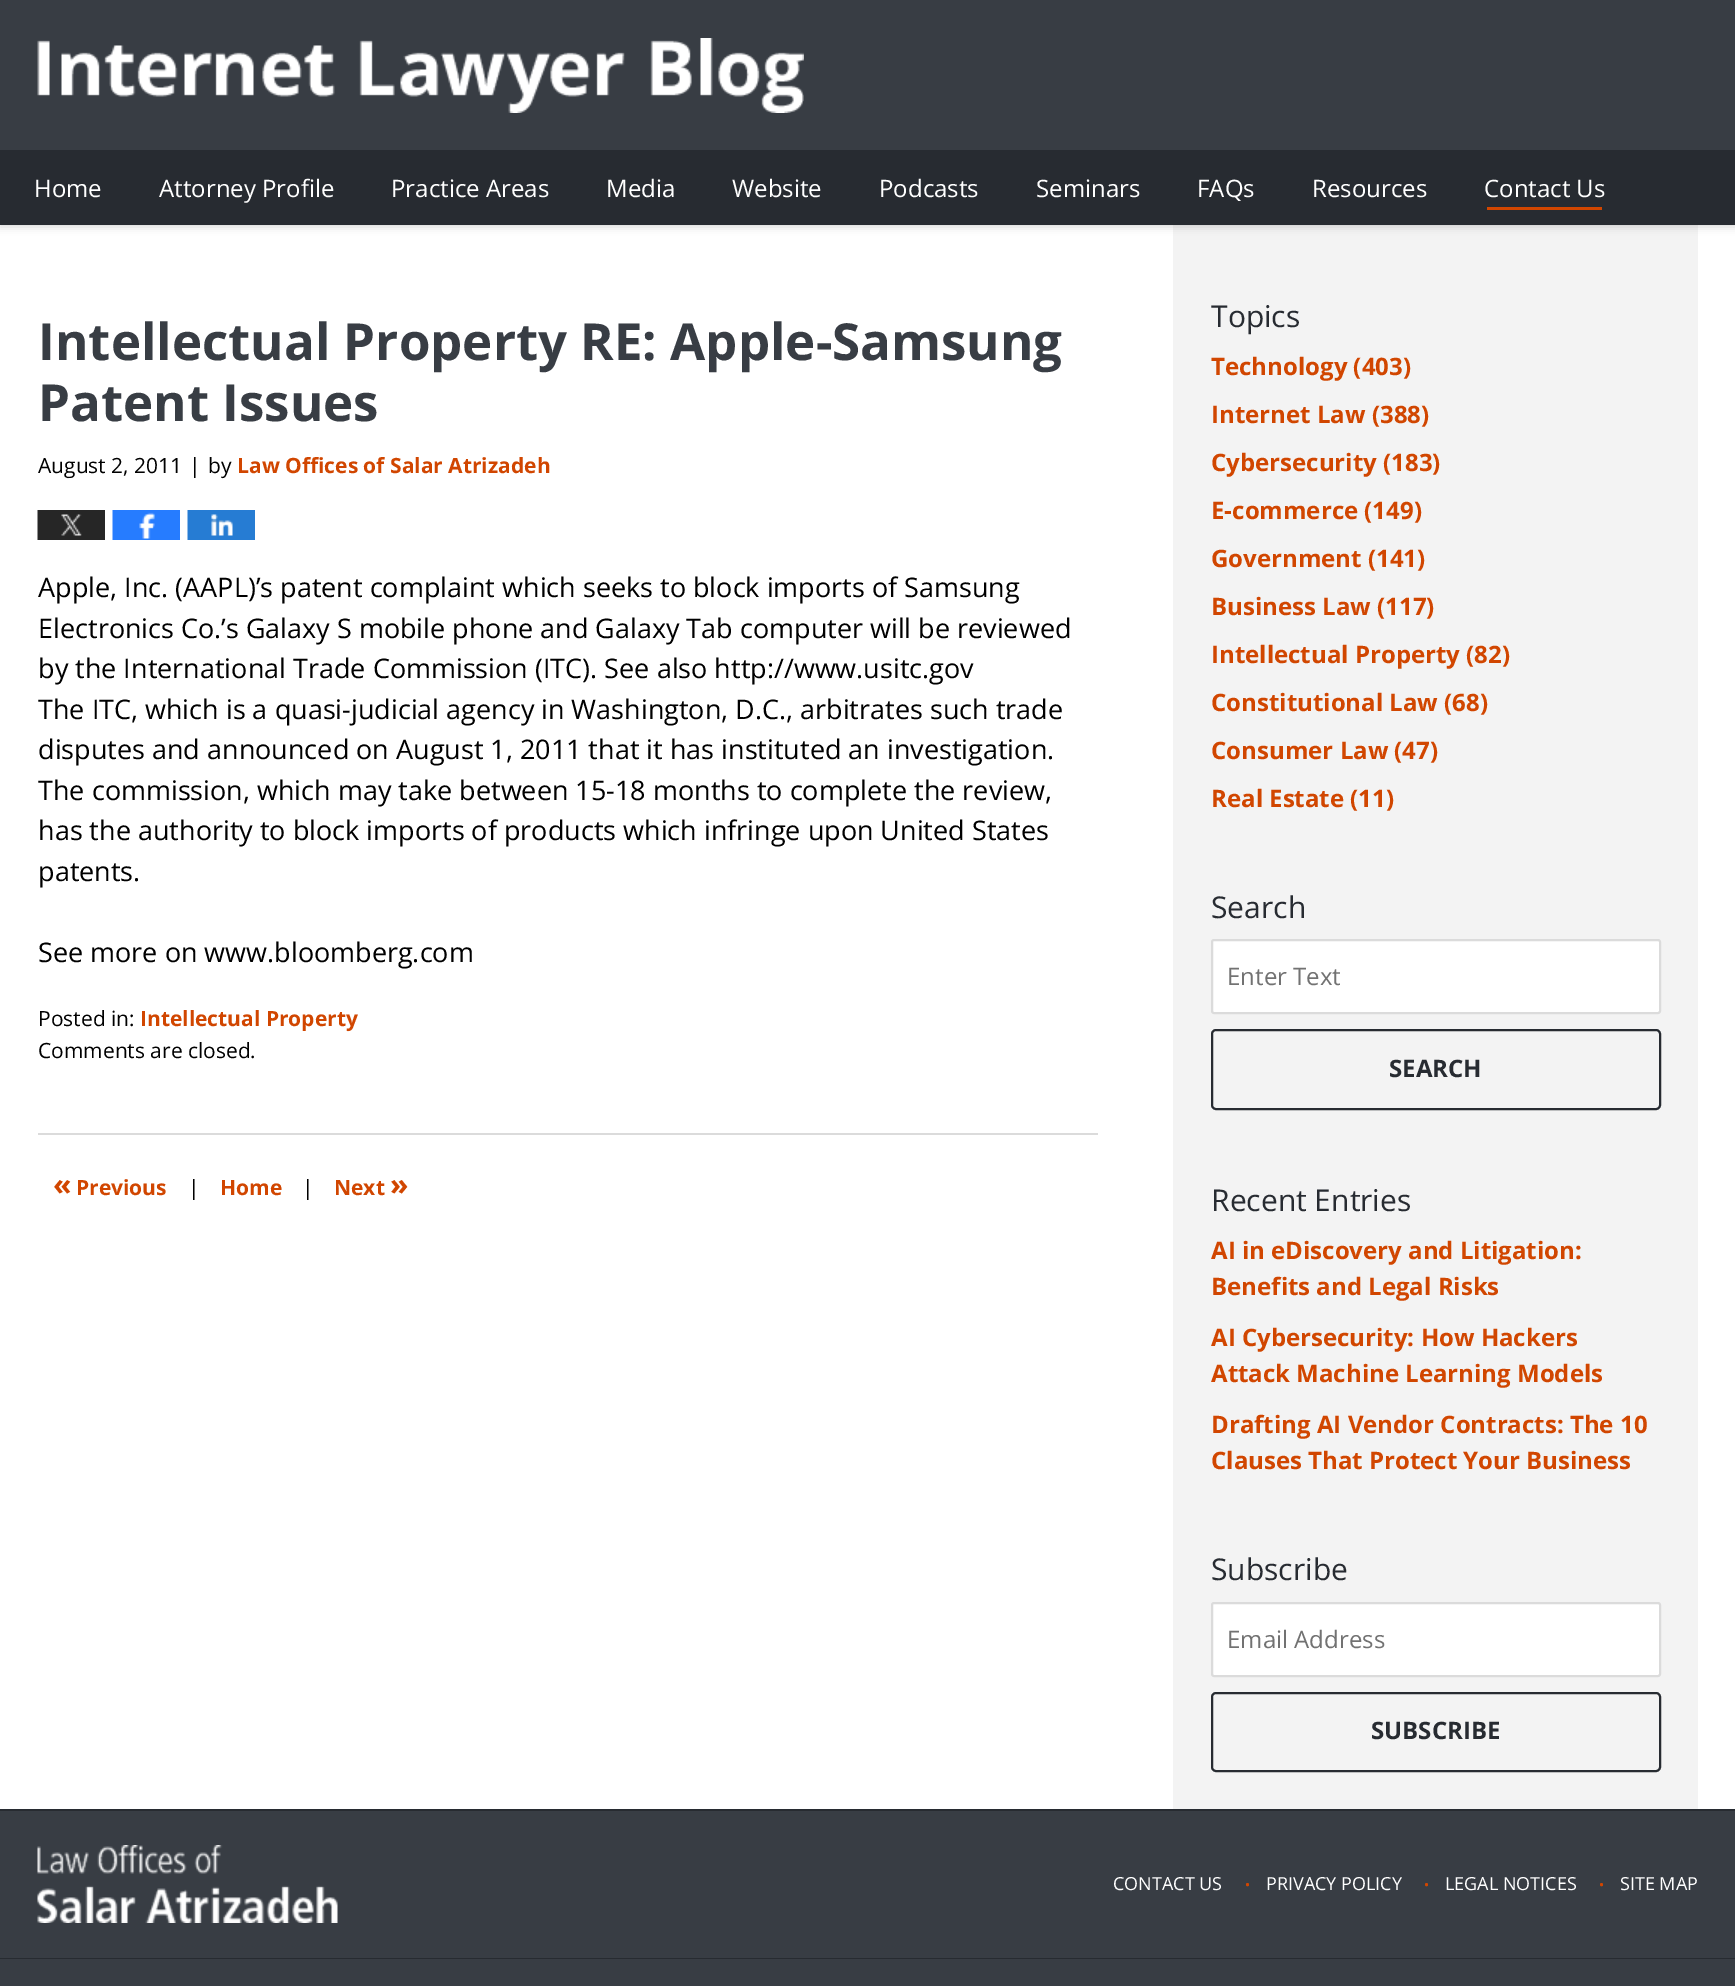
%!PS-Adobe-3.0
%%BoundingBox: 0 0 1735 1986
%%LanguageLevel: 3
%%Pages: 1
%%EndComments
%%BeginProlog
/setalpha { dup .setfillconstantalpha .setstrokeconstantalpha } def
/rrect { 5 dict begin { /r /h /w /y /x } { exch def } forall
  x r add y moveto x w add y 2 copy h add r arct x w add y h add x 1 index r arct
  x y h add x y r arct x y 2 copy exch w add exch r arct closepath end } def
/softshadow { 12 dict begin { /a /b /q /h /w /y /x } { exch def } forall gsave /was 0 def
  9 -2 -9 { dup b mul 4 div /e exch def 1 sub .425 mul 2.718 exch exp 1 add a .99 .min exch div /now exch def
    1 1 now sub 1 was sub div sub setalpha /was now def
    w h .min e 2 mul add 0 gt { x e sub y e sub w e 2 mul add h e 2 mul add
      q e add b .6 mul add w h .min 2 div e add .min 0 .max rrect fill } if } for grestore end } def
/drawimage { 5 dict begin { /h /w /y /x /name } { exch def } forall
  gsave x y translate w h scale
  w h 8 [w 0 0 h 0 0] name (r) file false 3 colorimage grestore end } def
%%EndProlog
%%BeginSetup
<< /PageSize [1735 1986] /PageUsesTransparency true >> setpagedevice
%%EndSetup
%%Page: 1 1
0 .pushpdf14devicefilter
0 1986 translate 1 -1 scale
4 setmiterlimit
1 setgray
0 0 1735 1986 rectfill
0.953 setgray
1173 225 525 1584 rectfill
0 setgray
0 2 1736 225 0 4 0.15 softshadow
0.22 0.239 0.267 setrgbcolor
0 0 1735 150 rectfill
(images/1.raw) 37 38 767 75 drawimage
0.153 0.169 0.192 setrgbcolor
0 150 1735 75 rectfill
0.82 0.275 0 setrgbcolor
1487 207 115 3 rectfill
0.859 setgray
38 1133 1060 2 rectfill
(images/2.raw) 37 510 68 30 drawimage
(images/3.raw) 112 510 68 30 drawimage
(images/4.raw) 187 510 68 30 drawimage
1 setgray
1212 940 448 73 2 rrect gsave fill grestore
0.859 setgray
2 setlinewidth
stroke
0.153 0.169 0.192 setrgbcolor
1212 1030 448 79 4 rrect stroke
1 setgray
1212 1603 448 73 2 rrect gsave fill grestore
0.859 setgray
stroke
0.153 0.169 0.192 setrgbcolor
1212 1693 448 78 4 rrect stroke
0.22 0.239 0.267 setrgbcolor
0 1959 1735 27 rectfill
0.153 0.169 0.192 setrgbcolor
0 1958 1735 1 rectfill
0.22 0.239 0.267 setrgbcolor
0 1811 1735 147 rectfill
0.153 0.169 0.192 setrgbcolor
0 1809 1735 2 rectfill
(images/5.raw) 37 1845 301 78 drawimage
/OpenSans-Regular [24 0 0 -24 0 0] selectfont
1 setgray
34 197 moveto (Home) show
159 197 moveto (Attorney Profile) show
391 197 moveto (Practice Areas) show
606 197 moveto (Media) show
732 197 moveto (Website) show
879 197 moveto (Podcasts) show
1036 197 moveto (Seminars) show
1197 197 moveto (FAQs) show
1312 197 moveto (Resources) show
1484 197 moveto (Contact Us) show
/OpenSans-Bold [51 0 0 -51 0 0] selectfont
0.22 0.239 0.267 setrgbcolor
38 360 moveto (Intellectual Property RE: Apple-Samsung) show
38 421 moveto (Patent Issues) show
/OpenSans-Regular [21 0 0 -21 0 0] selectfont
0 setgray
38 473 moveto (August 2, 2011) show
189 473 moveto (|) show
208 473 moveto (by) show
/OpenSans-Bold [21 0 0 -21 0 0] selectfont
0.82 0.275 0 setrgbcolor
237 473 moveto (Law Offices of Salar Atrizadeh) show
/OpenSans-Regular [27 0 0 -27 0 0] selectfont
0 setgray
38 597 moveto (Apple, Inc. \(AAPL\)’s patent complaint which seeks to block imports of Samsung) show
38 638 moveto (Electronics Co.’s Galaxy S mobile phone and Galaxy Tab computer will be reviewed) show
38 678 moveto (by the International Trade Commission \(ITC\). See also http://www.usitc.gov) show
38 719 moveto (The ITC, which is a quasi-judicial agency in Washington, D.C., arbitrates such trade) show
38 759 moveto (disputes and announced on August 1, 2011 that it has instituted an investigation.) show
38 800 moveto (The commission, which may take between 15-18 months to complete the review,) show
38 840 moveto (has the authority to block imports of products which infringe upon United States) show
38 881 moveto (patents.) show
38 962 moveto (See more on www.bloomberg.com) show
/OpenSans-Regular [21 0 0 -21 0 0] selectfont
38 1026 moveto (Posted in:) show
/OpenSans-Bold [21 0 0 -21 0 0] selectfont
0.82 0.275 0 setrgbcolor
140 1026 moveto (Intellectual Property) show
/OpenSans-Regular [21 0 0 -21 0 0] selectfont
0 setgray
38 1058 moveto (Comments are closed.) show
/OpenSans-Bold [30 0 0 -30 0 0] selectfont
0.82 0.275 0 setrgbcolor
53 1195 moveto («) show
/OpenSans-Bold [21 0 0 -21 0 0] selectfont
76 1195 moveto (Previous) show
/OpenSans-Regular [21 0 0 -21 0 0] selectfont
0 setgray
188 1195 moveto (|) show
/OpenSans-Bold [21 0 0 -21 0 0] selectfont
0.82 0.275 0 setrgbcolor
220 1195 moveto (Home) show
/OpenSans-Regular [21 0 0 -21 0 0] selectfont
0 setgray
302 1195 moveto (|) show
/OpenSans-Bold [21 0 0 -21 0 0] selectfont
0.82 0.275 0 setrgbcolor
334 1195 moveto (Next) show
/OpenSans-Bold [30 0 0 -30 0 0] selectfont
390 1195 moveto (») show
/OpenSans-Regular [30 0 0 -30 0 0] selectfont
0.153 0.169 0.192 setrgbcolor
1211 327 moveto (Topics) show
/OpenSans-Bold [24 0 0 -24 0 0] selectfont
0.82 0.275 0 setrgbcolor
1211 375 moveto (Technology \(403\)) show
1211 423 moveto (Internet Law \(388\)) show
1211 471 moveto (Cybersecurity \(183\)) show
1211 519 moveto (E-commerce \(149\)) show
1211 567 moveto (Government \(141\)) show
1211 615 moveto (Business Law \(117\)) show
1211 663 moveto (Intellectual Property \(82\)) show
1211 711 moveto (Constitutional Law \(68\)) show
1211 759 moveto (Consumer Law \(47\)) show
1211 807 moveto (Real Estate \(11\)) show
/OpenSans-Regular [30 0 0 -30 0 0] selectfont
0.153 0.169 0.192 setrgbcolor
1211 918 moveto (Search) show
/OpenSans-Regular [24 0 0 -24 0 0] selectfont
0.447 setgray
1227 985 moveto (Enter Text) show
/OpenSans-Bold [24 0 0 -24 0 0] selectfont
0.153 0.169 0.192 setrgbcolor
1389 1077 moveto (SEARCH) show
/OpenSans-Regular [30 0 0 -30 0 0] selectfont
1211 1211 moveto (Recent Entries) show
/OpenSans-Bold [24 0 0 -24 0 0] selectfont
0.82 0.275 0 setrgbcolor
1211 1259 moveto (AI in eDiscovery and Litigation:) show
1211 1295 moveto (Benefits and Legal Risks) show
1211 1346 moveto (AI Cybersecurity: How Hackers) show
1211 1382 moveto (Attack Machine Learning Models) show
1211 1433 moveto (Drafting AI Vendor Contracts: The 10) show
1211 1469 moveto (Clauses That Protect Your Business) show
/OpenSans-Regular [30 0 0 -30 0 0] selectfont
0.153 0.169 0.192 setrgbcolor
1211 1580 moveto (Subscribe) show
/OpenSans-Regular [24 0 0 -24 0 0] selectfont
0.447 setgray
1227 1648 moveto (Email Address) show
/OpenSans-Bold [24 0 0 -24 0 0] selectfont
0.153 0.169 0.192 setrgbcolor
1371 1739 moveto (SUBSCRIBE) show
/OpenSans-Regular [18 0 0 -18 0 0] selectfont
1 setgray
1113 1890 moveto (CONTACT US) show
/OpenSans-Regular [27 0 0 -27 0 0] selectfont
0.82 0.275 0 setrgbcolor
1244 1894 moveto (·) show
/OpenSans-Regular [18 0 0 -18 0 0] selectfont
1 setgray
1266 1890 moveto (PRIVACY POLICY) show
/OpenSans-Regular [27 0 0 -27 0 0] selectfont
0.82 0.275 0 setrgbcolor
1423 1894 moveto (·) show
/OpenSans-Regular [18 0 0 -18 0 0] selectfont
1 setgray
1445 1890 moveto (LEGAL NOTICES) show
/OpenSans-Regular [27 0 0 -27 0 0] selectfont
0.82 0.275 0 setrgbcolor
1598 1894 moveto (·) show
/OpenSans-Regular [18 0 0 -18 0 0] selectfont
1 setgray
1620 1890 moveto (SITE MAP) show
.poppdf14devicefilter showpage
%%EOF
